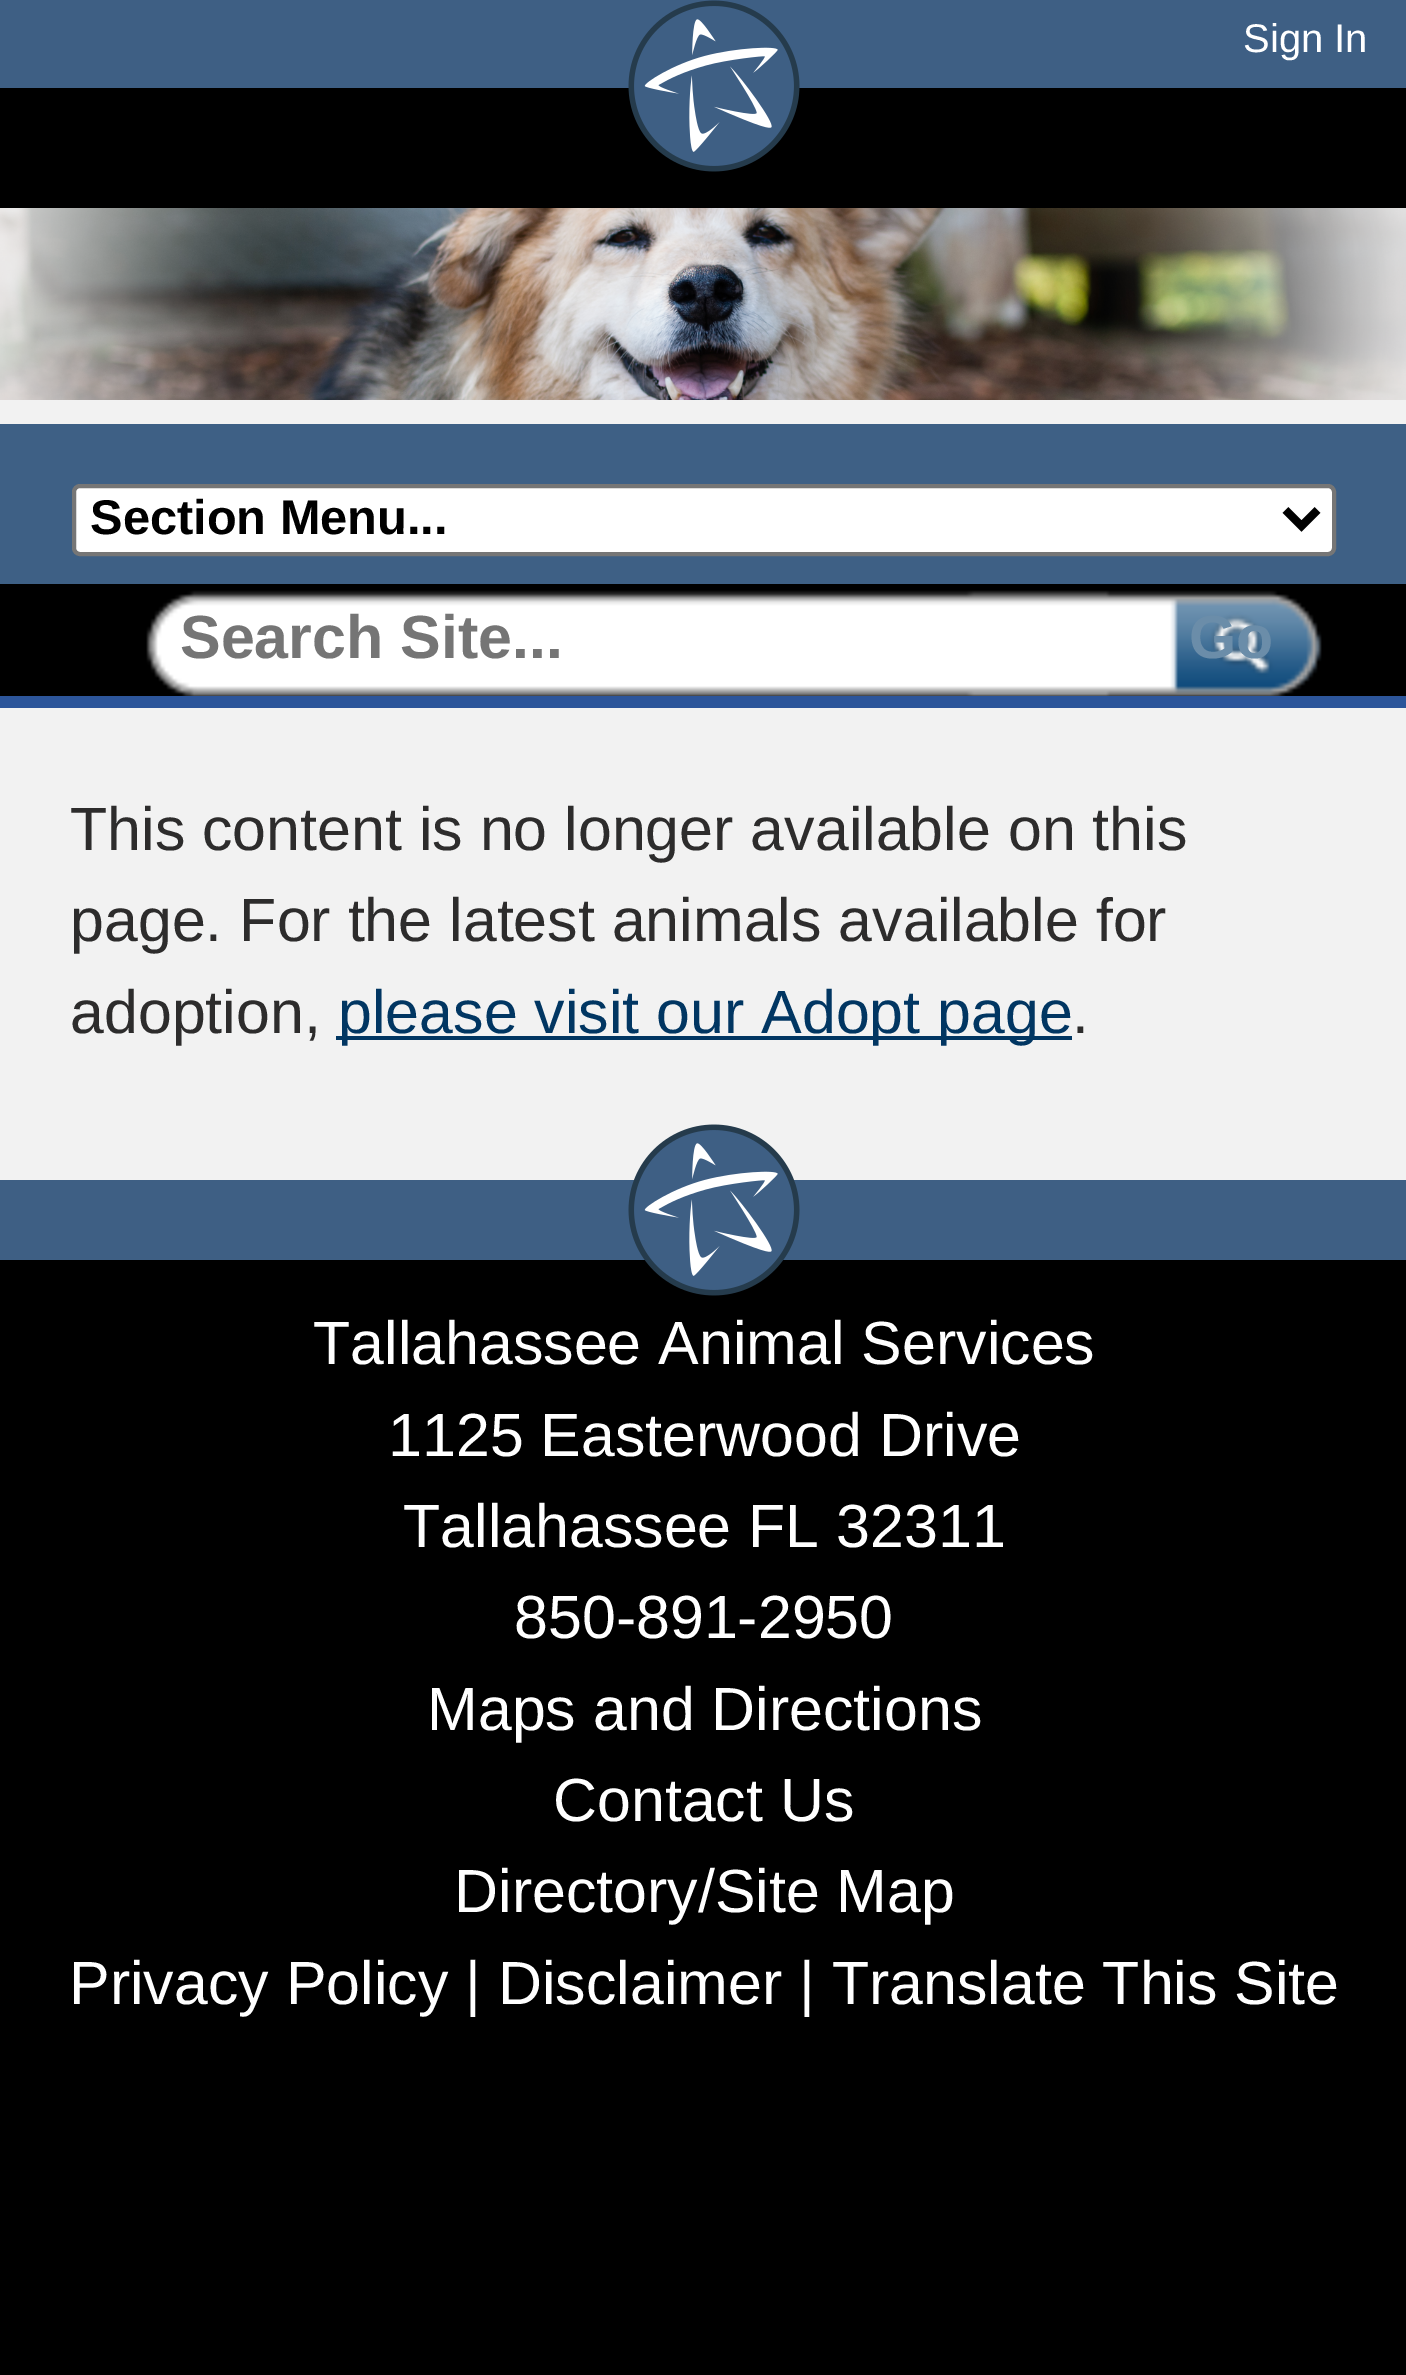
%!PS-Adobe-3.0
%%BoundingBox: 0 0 1406 2375
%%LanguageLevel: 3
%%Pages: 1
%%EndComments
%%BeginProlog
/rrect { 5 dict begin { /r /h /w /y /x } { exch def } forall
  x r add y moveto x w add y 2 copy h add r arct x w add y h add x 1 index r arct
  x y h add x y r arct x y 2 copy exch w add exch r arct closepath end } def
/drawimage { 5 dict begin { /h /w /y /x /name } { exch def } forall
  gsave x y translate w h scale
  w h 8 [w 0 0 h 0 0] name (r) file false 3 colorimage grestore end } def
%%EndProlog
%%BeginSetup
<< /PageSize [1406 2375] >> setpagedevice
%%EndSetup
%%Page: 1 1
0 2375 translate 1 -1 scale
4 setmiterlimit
0.949 setgray
0 0 1406 2375 rectfill
0.243 0.373 0.518 setrgbcolor
0 0 1406 88 rectfill
0 setgray
0 88 1406 120 rectfill
(images/1.raw) 628 0 172 172 drawimage
(images/2.raw) 0 208 1406 192 drawimage
0.243 0.376 0.522 setrgbcolor
0 424 1406 160 rectfill
1 setgray
74 486 1260 68 6 rrect gsave fill grestore
0.463 setgray
4 setlinewidth
stroke
0 setgray
8 setlinewidth
newpath 1285.5 510 moveto 1301.5 526 lineto 1317.5 510 lineto stroke
0 584 1406 112 rectfill
0.173 0.333 0.604 setrgbcolor
0 696 1406 12 rectfill
(images/3.raw) 146 590 1176 106 drawimage
0.004 0.212 0.384 setrgbcolor
336 1036 736 4 rectfill
0 setgray
0 1260 1406 1115 rectfill
0.243 0.373 0.518 setrgbcolor
0 1180 1406 80 rectfill
(images/4.raw) 628 1124 172 172 drawimage
/LiberationSans-Regular [40 0 0 -40 0 0] selectfont
1 setgray
1243 52 moveto (Sign In) show
/LiberationSans-Bold [48.75 0 0 -48.75 0 0] selectfont
0 setgray
90 534 moveto (Section Menu...) show
/LiberationSans-Bold [60.9 0 0 -60.9 0 0] selectfont
0.459 setgray
180 658 moveto (Search Site...) show
0.42 0.553 0.663 setrgbcolor
1189 658 moveto (Go) show
/LiberationSans-Regular [60.9 0 0 -60.9 0 0] selectfont
0.176 0.173 0.173 setrgbcolor
70 850 moveto (This content is no longer available on this) show
70 941 moveto (page. For the latest animals available for) show
70 1033 moveto (adoption,) show
0.004 0.212 0.384 setrgbcolor
338 1033 moveto (please visit our Adopt page) show
0.176 0.173 0.173 setrgbcolor
1072 1033 moveto (.) show
1 setgray
313 1364 moveto (Tallahassee Animal Services) show
388 1456 moveto (1125 Easterwood Drive) show
403 1547 moveto (Tallahassee FL 32311) show
514 1638 moveto (850-891-2950) show
427 1730 moveto (Maps and Directions) show
553 1821 moveto (Contact Us) show
454 1912 moveto (Directory/Site Map) show
69 2004 moveto (Privacy Policy) show
465 2004 moveto (| Disclaimer | Translate This Site) show
showpage
%%EOF
